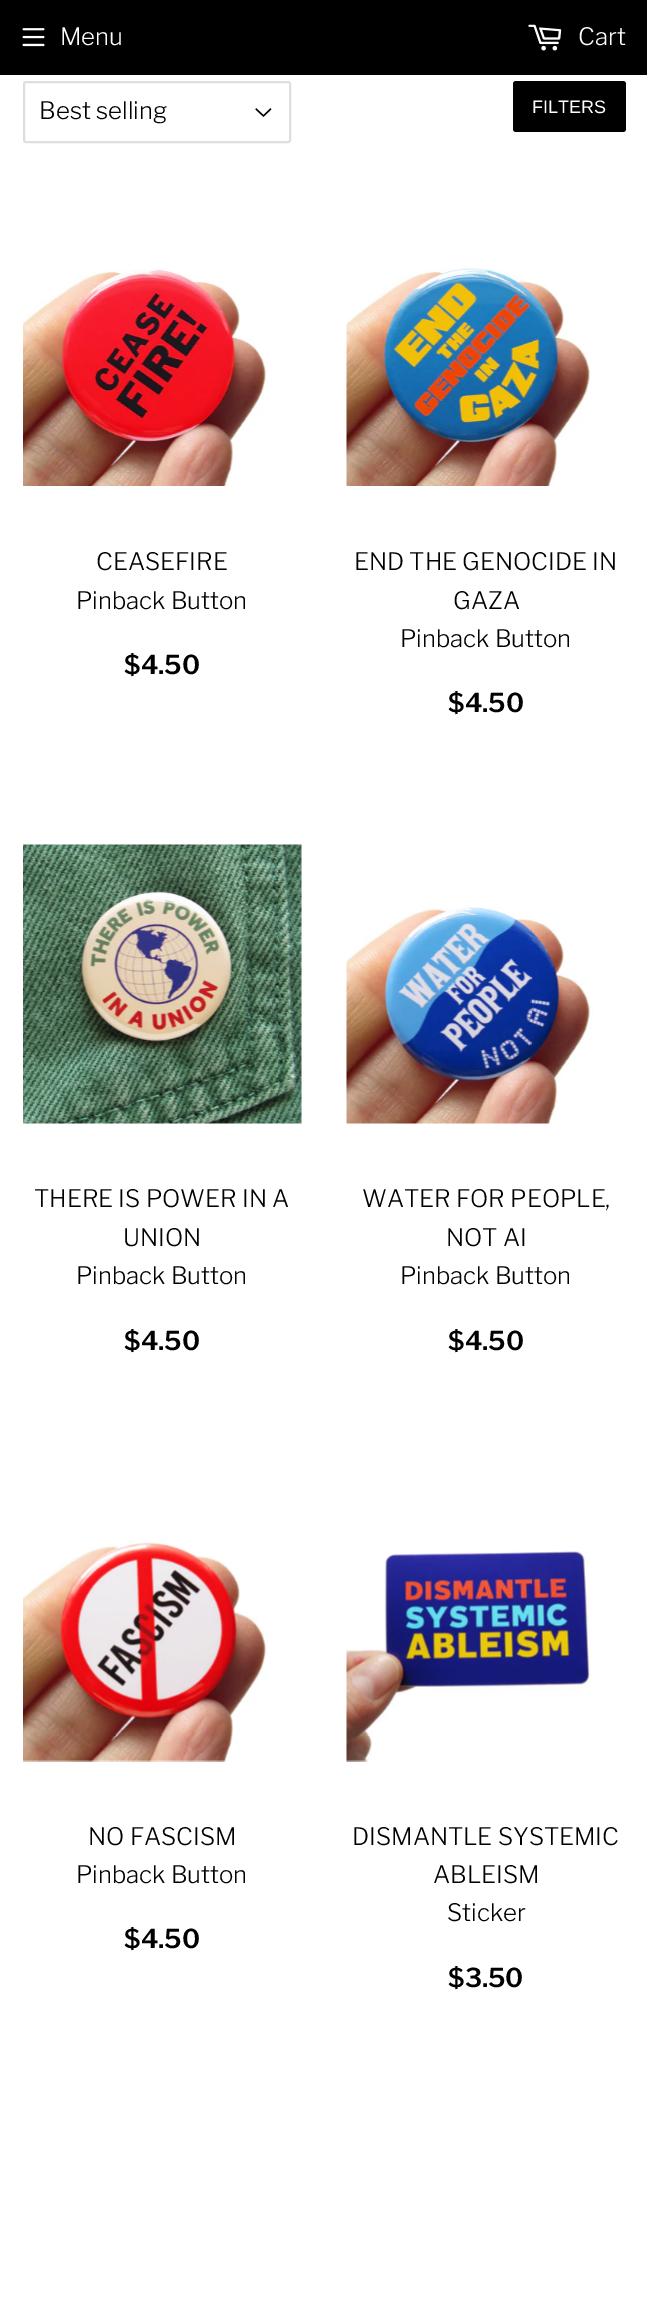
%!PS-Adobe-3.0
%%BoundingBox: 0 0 647 2322
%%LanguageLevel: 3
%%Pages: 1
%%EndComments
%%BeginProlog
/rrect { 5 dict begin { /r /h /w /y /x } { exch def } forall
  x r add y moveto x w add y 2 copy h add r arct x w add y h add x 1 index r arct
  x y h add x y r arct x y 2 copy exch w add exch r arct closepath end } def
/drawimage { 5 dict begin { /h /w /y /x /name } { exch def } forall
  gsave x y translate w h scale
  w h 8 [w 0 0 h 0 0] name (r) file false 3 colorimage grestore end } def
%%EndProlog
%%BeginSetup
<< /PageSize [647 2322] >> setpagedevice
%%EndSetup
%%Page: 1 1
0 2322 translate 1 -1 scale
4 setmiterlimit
1 setgray
0 0 647 2322 rectfill
0 setgray
0 0 647 75 rectfill
(images/1.raw) 22 28 23 19 drawimage
(images/2.raw) 528 24 34 27 drawimage
(images/3.raw) 255 108 17 9 drawimage
0.871 setgray
2 setlinewidth
24 82 266 60 2 rrect stroke
0 setgray
513 81 113 51 3 rrect fill
(images/4.raw) 23 269 246 217 drawimage
(images/5.raw) 346 268 245 218 drawimage
(images/6.raw) 23 844 279 280 drawimage
(images/7.raw) 346 906 248 218 drawimage
(images/8.raw) 23 1542 246 220 drawimage
(images/9.raw) 346 1551 245 211 drawimage
/LibreFranklin-Light [24 0 0 -24 0 0] selectfont
1 setgray
60 45 moveto (Menu) show
578 45 moveto (Cart) show
0 setgray
39 119 moveto (Best selling) show
/Arimo-Regular [18 0 0 -18 0 0] selectfont
1 setgray
532 113 moveto (FILTERS) show
/LibreFranklin-Light [24 0 0 -24 0 0] selectfont
0 setgray
96 570 moveto (CEASEFIRE) show
76 609 moveto (Pinback Button) show
/LibreFranklin-SemiBold [26 0 0 -26 0 0] selectfont
124 674 moveto ($4.50) show
/LibreFranklin-Light [24 0 0 -24 0 0] selectfont
354 570 moveto (END THE GENOCIDE IN) show
453 609 moveto (GAZA) show
400 647 moveto (Pinback Button) show
/LibreFranklin-SemiBold [26 0 0 -26 0 0] selectfont
448 712 moveto ($4.50) show
/LibreFranklin-Light [24 0 0 -24 0 0] selectfont
34 1207 moveto (THERE IS POWER IN A) show
123 1246 moveto (UNION) show
76 1284 moveto (Pinback Button) show
/LibreFranklin-SemiBold [26 0 0 -26 0 0] selectfont
124 1350 moveto ($4.50) show
/LibreFranklin-Light [24 0 0 -24 0 0] selectfont
362 1207 moveto (WATER FOR PEOPLE,) show
446 1246 moveto (NOT AI) show
400 1284 moveto (Pinback Button) show
/LibreFranklin-SemiBold [26 0 0 -26 0 0] selectfont
448 1350 moveto ($4.50) show
/LibreFranklin-Light [24 0 0 -24 0 0] selectfont
88 1845 moveto (NO FASCISM) show
76 1883 moveto (Pinback Button) show
/LibreFranklin-SemiBold [26 0 0 -26 0 0] selectfont
124 1948 moveto ($4.50) show
/LibreFranklin-Light [24 0 0 -24 0 0] selectfont
352 1845 moveto (DISMANTLE SYSTEMIC) show
433 1883 moveto (ABLEISM) show
447 1921 moveto (Sticker) show
/LibreFranklin-SemiBold [26 0 0 -26 0 0] selectfont
448 1987 moveto ($3.50) show
showpage
%%EOF
